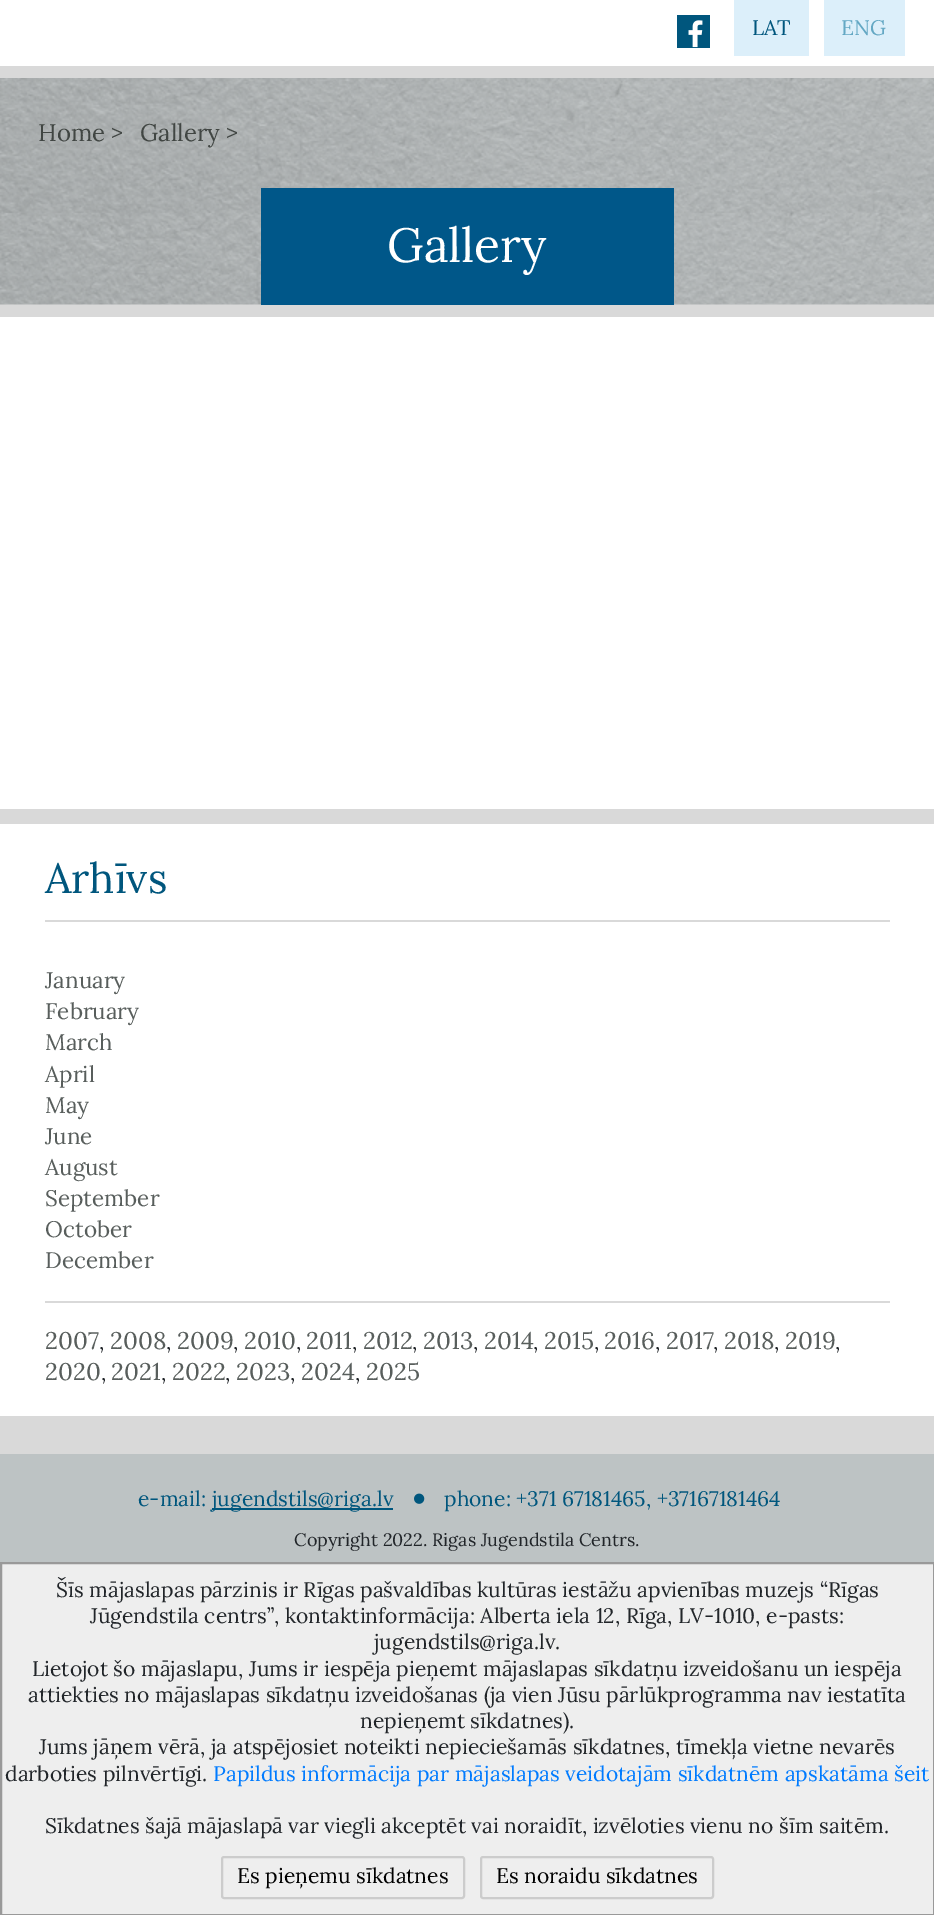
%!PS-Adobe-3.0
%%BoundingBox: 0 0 934 1915
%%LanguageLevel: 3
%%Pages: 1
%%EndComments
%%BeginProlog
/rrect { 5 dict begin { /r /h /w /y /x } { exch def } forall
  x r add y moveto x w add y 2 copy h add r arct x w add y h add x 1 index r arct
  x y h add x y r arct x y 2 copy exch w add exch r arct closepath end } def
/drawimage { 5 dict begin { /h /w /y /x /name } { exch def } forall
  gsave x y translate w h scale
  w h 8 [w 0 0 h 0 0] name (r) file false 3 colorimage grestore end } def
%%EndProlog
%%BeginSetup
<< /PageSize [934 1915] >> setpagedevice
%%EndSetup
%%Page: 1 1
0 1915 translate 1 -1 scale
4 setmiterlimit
0.851 setgray
0 0 934 1915 rectfill
1 setgray
0 0 934 66 rectfill
0 0.337 0.49 setrgbcolor
677 15 33 33 rectfill
(images/1.raw) 688 20 15 28 drawimage
0.863 0.937 0.98 setrgbcolor
734 0 75 56 rectfill
824 0 81 56 rectfill
(images/2.raw) 0 78 934 227 drawimage
0 0.341 0.537 setrgbcolor
261 188 413 117 rectfill
1 setgray
0 317 934 492 rectfill
0 824 934 592 rectfill
0.851 setgray
45 920 845 2 rectfill
45 1301 845 2 rectfill
0.741 0.765 0.769 setrgbcolor
0 1454 934 108 rectfill
0 0.337 0.49 setrgbcolor
212 1508 181 2 rectfill
(images/3.raw) 414 1493 11 11 drawimage
0.933 setgray
newpath 1 1563 moveto 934 1563 lineto 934 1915 lineto 1 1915 lineto closepath gsave fill grestore
0.6 setgray
2 setlinewidth
stroke
0.8 setgray
222 1857 242 41 2 rrect stroke
481 1857 232 41 2 rrect stroke
/Lora-Regular [21 0 0 -21 0 0] selectfont
0 0.337 0.49 setrgbcolor
752 35 moveto (LAT) show
0.392 0.659 0.769 setrgbcolor
841 35 moveto (ENG) show
/Lora-Regular [24 0 0 -24 0 0] selectfont
0.255 0.275 0.263 setrgbcolor
38 141 moveto (Home) show
/Lora-Regular [22.5 0 0 -22.5 0 0] selectfont
111 140 moveto (>) show
/Lora-Regular [24 0 0 -24 0 0] selectfont
140 141 moveto (Gallery) show
/Lora-Regular [22.5 0 0 -22.5 0 0] selectfont
226 140 moveto (>) show
/Lora-Regular [48 0 0 -48 0 0] selectfont
1 setgray
387 262 moveto (Gallery) show
/Lora-Regular [42 0 0 -42 0 0] selectfont
0 0.337 0.49 setrgbcolor
45 893 moveto (Arhīvs) show
/Lora-Regular [22.5 0 0 -22.5 0 0] selectfont
0.345 0.369 0.361 setrgbcolor
45 988 moveto (January) show
45 1019 moveto (February) show
45 1050 moveto (March) show
45 1082 moveto (April) show
45 1113 moveto (May) show
45 1144 moveto (June) show
45 1175 moveto (August) show
45 1206 moveto (September) show
45 1237 moveto (October) show
45 1268 moveto (December) show
/Lora-Regular [24 0 0 -24 0 0] selectfont
45 1349 moveto (2007) show
/Lora-Regular [21 0 0 -21 0 0] selectfont
0.129 0.145 0.161 setrgbcolor
99 1349 moveto (,) show
/Lora-Regular [24 0 0 -24 0 0] selectfont
0.345 0.369 0.361 setrgbcolor
110 1349 moveto (2008) show
/Lora-Regular [21 0 0 -21 0 0] selectfont
0.129 0.145 0.161 setrgbcolor
166 1349 moveto (,) show
/Lora-Regular [24 0 0 -24 0 0] selectfont
0.345 0.369 0.361 setrgbcolor
177 1349 moveto (2009) show
/Lora-Regular [21 0 0 -21 0 0] selectfont
0.129 0.145 0.161 setrgbcolor
233 1349 moveto (,) show
/Lora-Regular [24 0 0 -24 0 0] selectfont
0.345 0.369 0.361 setrgbcolor
244 1349 moveto (2010) show
/Lora-Regular [21 0 0 -21 0 0] selectfont
0.129 0.145 0.161 setrgbcolor
296 1349 moveto (,) show
/Lora-Regular [24 0 0 -24 0 0] selectfont
0.345 0.369 0.361 setrgbcolor
306 1349 moveto (2011) show
/Lora-Regular [21 0 0 -21 0 0] selectfont
0.129 0.145 0.161 setrgbcolor
352 1349 moveto (,) show
/Lora-Regular [24 0 0 -24 0 0] selectfont
0.345 0.369 0.361 setrgbcolor
363 1349 moveto (2012) show
/Lora-Regular [21 0 0 -21 0 0] selectfont
0.129 0.145 0.161 setrgbcolor
412 1349 moveto (,) show
/Lora-Regular [24 0 0 -24 0 0] selectfont
0.345 0.369 0.361 setrgbcolor
423 1349 moveto (2013) show
/Lora-Regular [21 0 0 -21 0 0] selectfont
0.129 0.145 0.161 setrgbcolor
473 1349 moveto (,) show
/Lora-Regular [24 0 0 -24 0 0] selectfont
0.345 0.369 0.361 setrgbcolor
484 1349 moveto (2014) show
/Lora-Regular [21 0 0 -21 0 0] selectfont
0.129 0.145 0.161 setrgbcolor
533 1349 moveto (,) show
/Lora-Regular [24 0 0 -24 0 0] selectfont
0.345 0.369 0.361 setrgbcolor
544 1349 moveto (2015) show
/Lora-Regular [21 0 0 -21 0 0] selectfont
0.129 0.145 0.161 setrgbcolor
594 1349 moveto (,) show
/Lora-Regular [24 0 0 -24 0 0] selectfont
0.345 0.369 0.361 setrgbcolor
604 1349 moveto (2016) show
/Lora-Regular [21 0 0 -21 0 0] selectfont
0.129 0.145 0.161 setrgbcolor
655 1349 moveto (,) show
/Lora-Regular [24 0 0 -24 0 0] selectfont
0.345 0.369 0.361 setrgbcolor
666 1349 moveto (2017) show
/Lora-Regular [21 0 0 -21 0 0] selectfont
0.129 0.145 0.161 setrgbcolor
713 1349 moveto (,) show
/Lora-Regular [24 0 0 -24 0 0] selectfont
0.345 0.369 0.361 setrgbcolor
724 1349 moveto (2018) show
/Lora-Regular [21 0 0 -21 0 0] selectfont
0.129 0.145 0.161 setrgbcolor
774 1349 moveto (,) show
/Lora-Regular [24 0 0 -24 0 0] selectfont
0.345 0.369 0.361 setrgbcolor
785 1349 moveto (2019) show
/Lora-Regular [21 0 0 -21 0 0] selectfont
0.129 0.145 0.161 setrgbcolor
835 1349 moveto (,) show
/Lora-Regular [24 0 0 -24 0 0] selectfont
0.345 0.369 0.361 setrgbcolor
45 1380 moveto (2020) show
/Lora-Regular [21 0 0 -21 0 0] selectfont
0.129 0.145 0.161 setrgbcolor
101 1380 moveto (,) show
/Lora-Regular [24 0 0 -24 0 0] selectfont
0.345 0.369 0.361 setrgbcolor
111 1380 moveto (2021) show
/Lora-Regular [21 0 0 -21 0 0] selectfont
0.129 0.145 0.161 setrgbcolor
161 1380 moveto (,) show
/Lora-Regular [24 0 0 -24 0 0] selectfont
0.345 0.369 0.361 setrgbcolor
172 1380 moveto (2022) show
/Lora-Regular [21 0 0 -21 0 0] selectfont
0.129 0.145 0.161 setrgbcolor
225 1380 moveto (,) show
/Lora-Regular [24 0 0 -24 0 0] selectfont
0.345 0.369 0.361 setrgbcolor
236 1380 moveto (2023) show
/Lora-Regular [21 0 0 -21 0 0] selectfont
0.129 0.145 0.161 setrgbcolor
290 1380 moveto (,) show
/Lora-Regular [24 0 0 -24 0 0] selectfont
0.345 0.369 0.361 setrgbcolor
301 1380 moveto (2024) show
/Lora-Regular [21 0 0 -21 0 0] selectfont
0.129 0.145 0.161 setrgbcolor
355 1380 moveto (,) show
/Lora-Regular [24 0 0 -24 0 0] selectfont
0.345 0.369 0.361 setrgbcolor
366 1380 moveto (2025) show
/Lora-Regular [21 0 0 -21 0 0] selectfont
0 0.337 0.49 setrgbcolor
138 1506 moveto (e-mail:) show
212 1506 moveto (jugendstils@riga.lv) show
444 1506 moveto (phone: +371 67181465, +37167181464) show
/Lora-Regular [18 0 0 -18 0 0] selectfont
0.129 0.145 0.161 setrgbcolor
294 1546 moveto (Copyright 2022. Rigas Jugendstila Centrs.) show
/Lora-Regular [21 0 0 -21 0 0] selectfont
56 1597 moveto (Šīs mājaslapas pārzinis ir Rīgas pašvaldības kultūras iestāžu apvienības muzejs “Rīgas) show
90 1623 moveto (Jūgendstila centrs”, kontaktinformācija: Alberta iela 12, Rīga, LV-1010, e-pasts:) show
374 1649 moveto (jugendstils@riga.lv.) show
32 1676 moveto (Lietojot šo mājaslapu, Jums ir iespēja pieņemt mājaslapas sīkdatņu izveidošanu un iespēja) show
28 1702 moveto (attiekties no mājaslapas sīkdatņu izveidošanas \(ja vien Jūsu pārlūkprogramma nav iestatīta) show
360 1728 moveto (nepieņemt sīkdatnes\).) show
39 1754 moveto (Jums jāņem vērā, ja atspējosiet noteikti nepieciešamās sīkdatnes, tīmekļa vietne nevarēs) show
5 1781 moveto (darboties pilnvērtīgi.) show
0 0.482 1 setrgbcolor
213 1781 moveto (Papildus informācija par mājaslapas veidotajām sīkdatnēm apskatāma šeit) show
0.129 0.145 0.161 setrgbcolor
45 1833 moveto (Sīkdatnes šajā mājaslapā var viegli akceptēt vai noraidīt, izvēloties vienu no šīm saitēm.) show
0 setgray
237 1883 moveto (Es pieņemu sīkdatnes) show
496 1883 moveto (Es noraidu sīkdatnes) show
showpage
%%EOF
